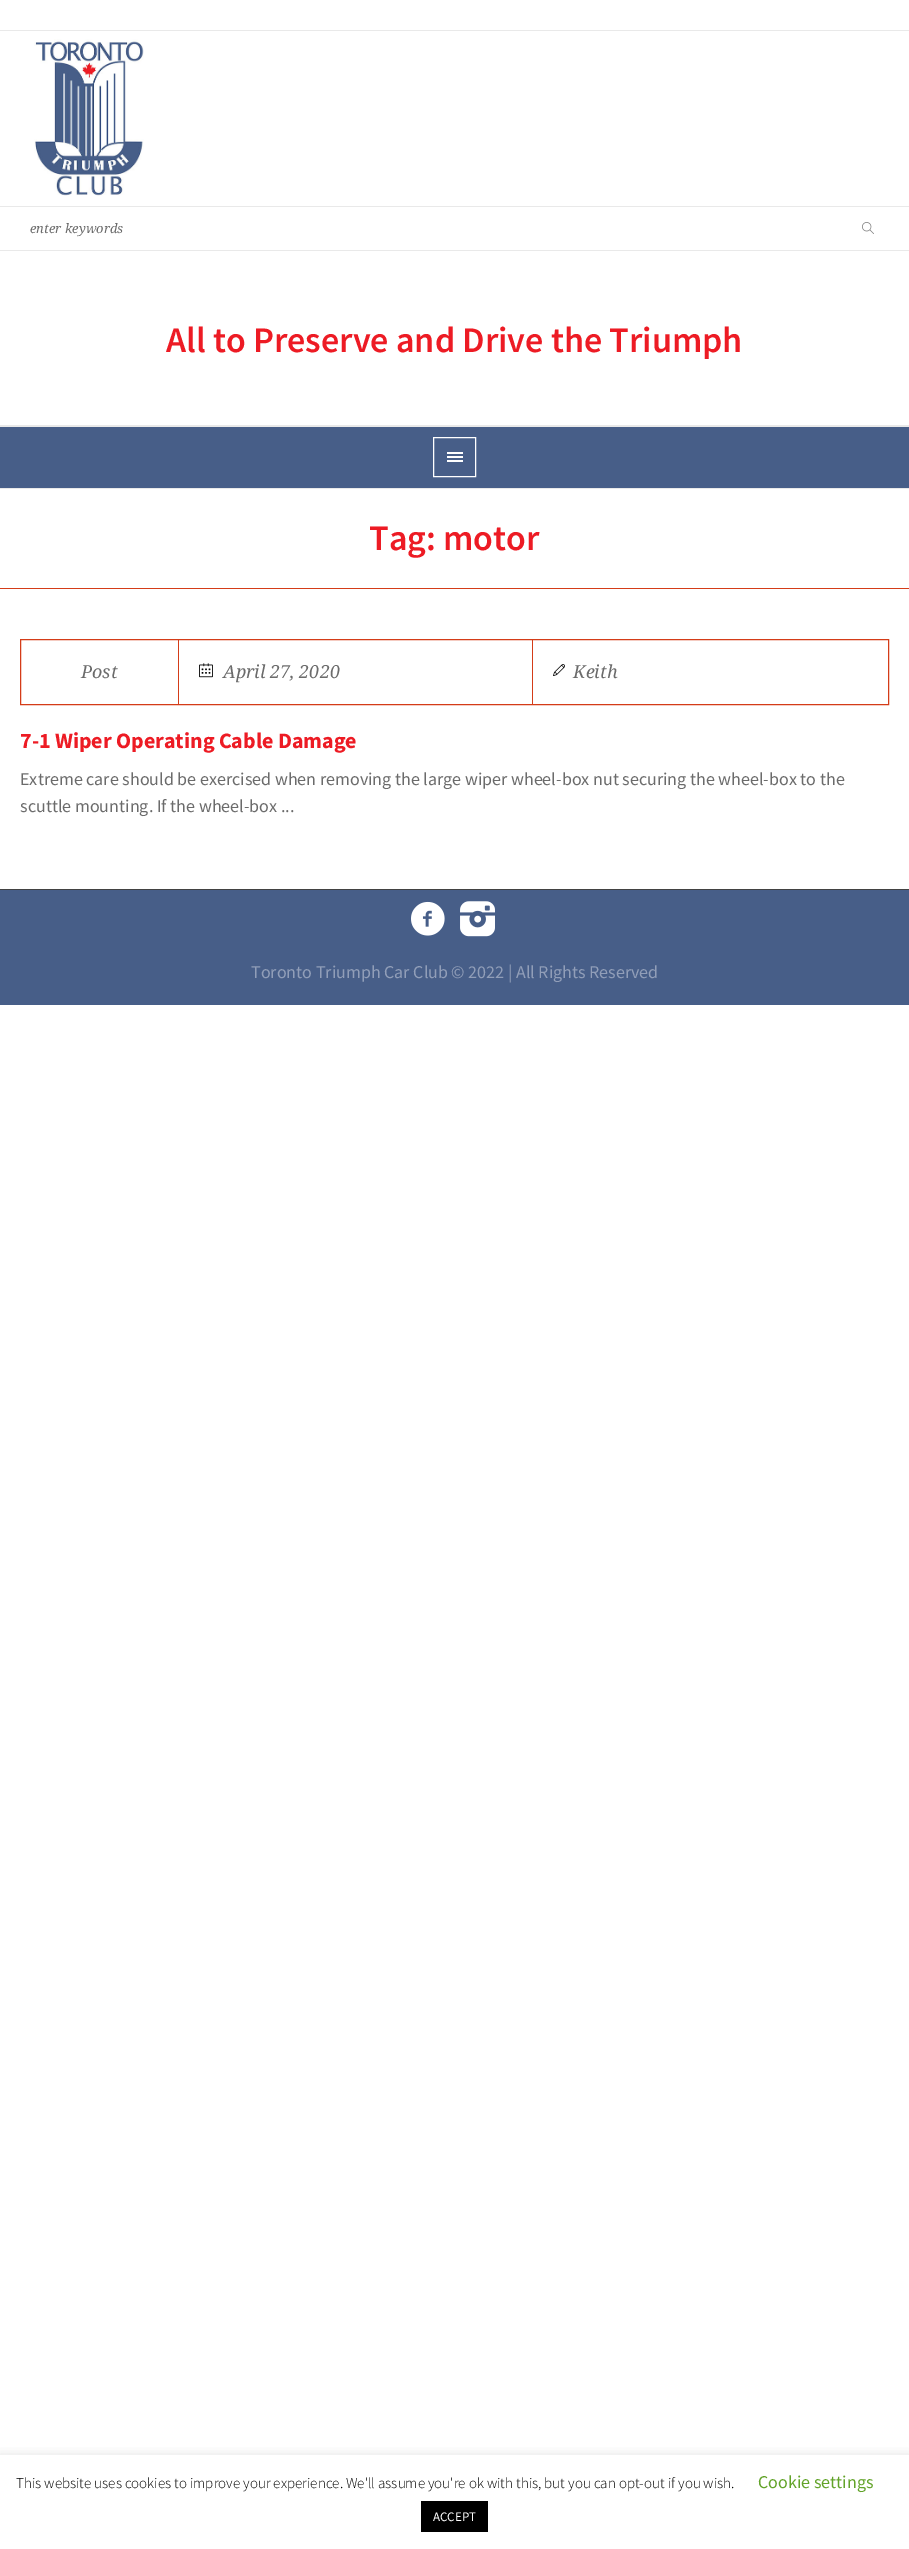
%!PS-Adobe-3.0
%%BoundingBox: 0 0 909 2549
%%LanguageLevel: 3
%%Pages: 1
%%EndComments
%%BeginProlog
/setalpha { dup .setfillconstantalpha .setstrokeconstantalpha } def
/rrect { 5 dict begin { /r /h /w /y /x } { exch def } forall
  x r add y moveto x w add y 2 copy h add r arct x w add y h add x 1 index r arct
  x y h add x y r arct x y 2 copy exch w add exch r arct closepath end } def
/softshadow { 12 dict begin { /a /b /q /h /w /y /x } { exch def } forall gsave /was 0 def
  9 -2 -9 { dup b mul 4 div /e exch def 1 sub .425 mul 2.718 exch exp 1 add a .99 .min exch div /now exch def
    1 1 now sub 1 was sub div sub setalpha /was now def
    w h .min e 2 mul add 0 gt { x e sub y e sub w e 2 mul add h e 2 mul add
      q e add b .6 mul add w h .min 2 div e add .min 0 .max rrect fill } if } for grestore end } def
/drawimage { 5 dict begin { /h /w /y /x /name } { exch def } forall
  gsave x y translate w h scale
  w h 8 [w 0 0 h 0 0] name (r) file false 3 colorimage grestore end } def
%%EndProlog
%%BeginSetup
<< /PageSize [909 2549] /PageUsesTransparency true >> setpagedevice
%%EndSetup
%%Page: 1 1
0 .pushpdf14devicefilter
0 2549 translate 1 -1 scale
4 setmiterlimit
1 setgray
0 0 909 2549 rectfill
0.914 setgray
0 30 909 1 rectfill
0 425 909 2 rectfill
(images/1.raw) 34 39 110 157 drawimage
0 206 909 1 rectfill
0 250 909 1 rectfill
(images/2.raw) 862 222 12 12 drawimage
0.278 0.369 0.533 setrgbcolor
0 427 909 61 rectfill
0.914 setgray
0 488 909 1 rectfill
1 setgray
433.5 437.5 42 39 rectstroke
447 452 16 2 rectfill
447 460 16 2 rectfill
447 456 16 2 rectfill
0.831 0.235 0.094 setrgbcolor
0 588 909 1 rectfill
20.5 639.5 868 65 rectstroke
178 640 1 64 rectfill
532 640 1 64 rectfill
(images/3.raw) 199 663 14 15 drawimage
(images/4.raw) 553 664 12 12 drawimage
0.278 0.369 0.533 setrgbcolor
0 890 909 115 rectfill
0.259 setgray
0 889 909 1 rectfill
(images/5.raw) 411 901 34 35 drawimage
(images/6.raw) 460 901 35 36 drawimage
gsave
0 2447 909 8 rectclip
0.675 0.671 0.671 setrgbcolor
0 2454 909 94 0 5 0.3 softshadow
grestore
0 setgray
421 2501 67 31 rectfill
/DroidSerif-Italic [13 0 0 -13 0 0] selectfont
0.42 setgray
30 233 moveto (enter keywords) show
/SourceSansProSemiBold-SemiBold [36 0 0 -36 0 0] selectfont
0.929 0.106 0.141 setrgbcolor
166 352 moveto (All to Preserve and Drive the Triumph) show
369 550 moveto (Tag: motor) show
/DroidSerif-Italic [18 0 0 -18 0 0] selectfont
0.42 setgray
81 678 moveto (Post) show
223 678 moveto (April 27, 2020) show
573 678 moveto (Keith) show
/SourceSansPro-Bold [22 0 0 -22 0 0] selectfont
0.929 0.106 0.141 setrgbcolor
20 748 moveto (7-1 Wiper Operating Cable Damage) show
/SourceSansPro-Regular [18 0 0 -18 0 0] selectfont
0.42 setgray
20 785 moveto (Extreme care should be exercised when removing the large wiper wheel-box nut securing the wheel-box to the) show
20 812 moveto (scuttle mounting. If the wheel-box ...) show
0.569 0.62 0.722 setrgbcolor
251 978 moveto (Toronto Triumph Car Club © 2022 | All Rights Reserved) show
/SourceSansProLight-Light [15 0 0 -15 0 0] selectfont
0 setgray
16 2488 moveto (This website uses cookies to improve your experience. We'll assume you're ok with this, but you can opt-out if you wish.) show
/SourceSansPro-Regular [18 0 0 -18 0 0] selectfont
0.384 0.639 0.161 setrgbcolor
758 2488 moveto (Cookie settings) show
/SourceSansPro-Regular [13 0 0 -13 0 0] selectfont
1 setgray
433 2521 moveto (ACCEPT) show
.poppdf14devicefilter showpage
%%EOF
